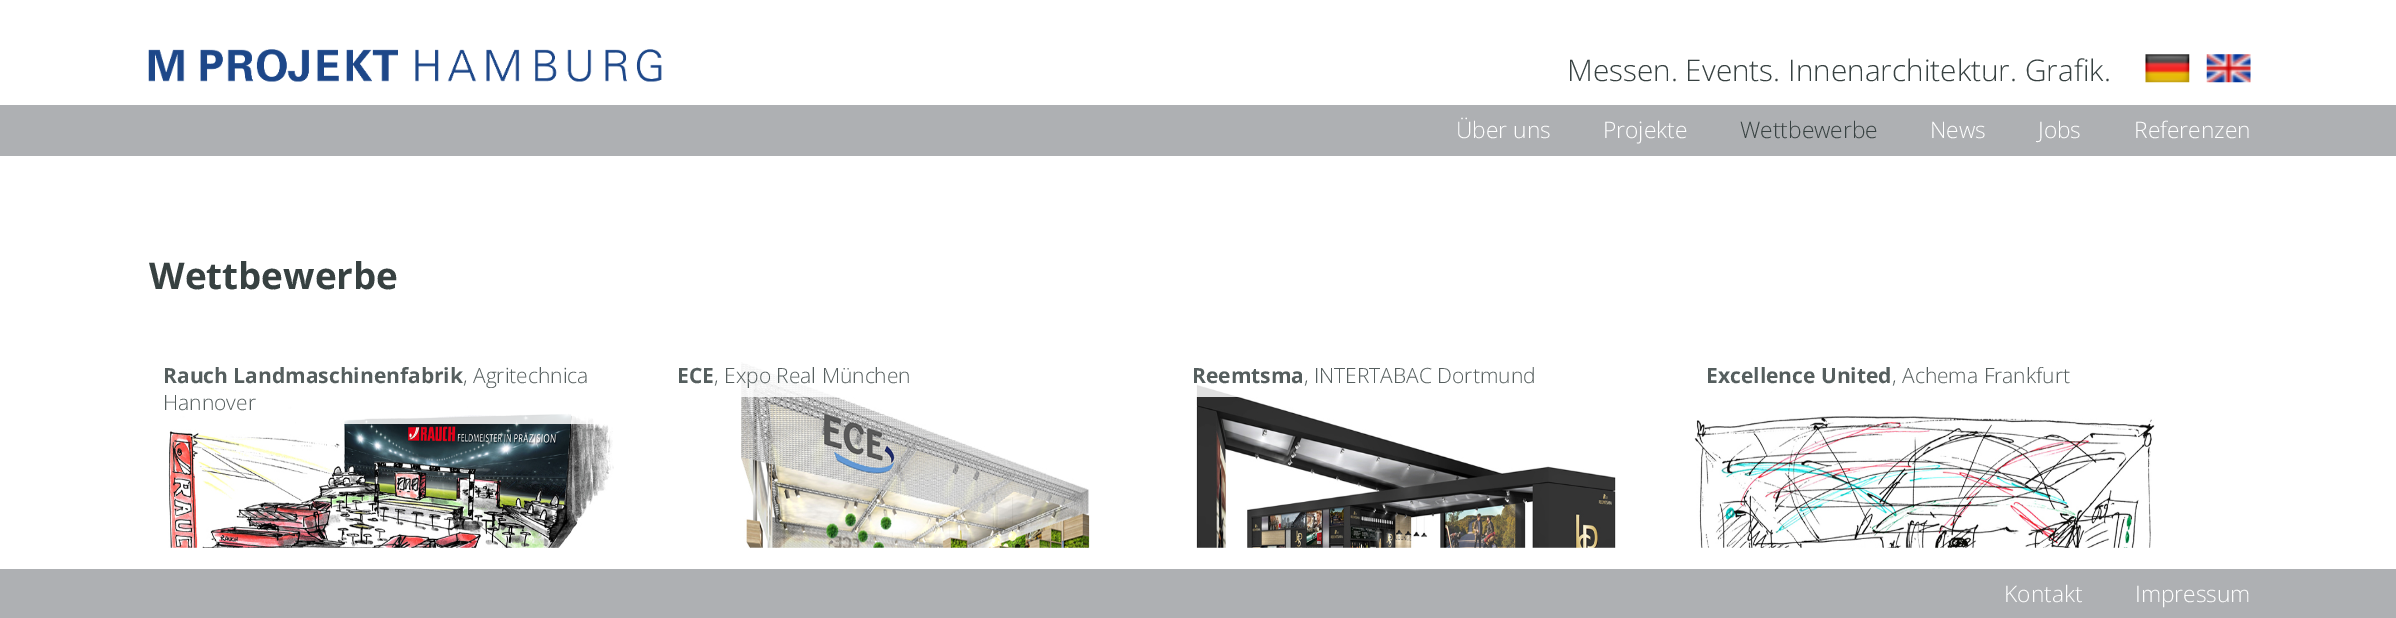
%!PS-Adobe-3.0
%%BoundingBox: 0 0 2396 618
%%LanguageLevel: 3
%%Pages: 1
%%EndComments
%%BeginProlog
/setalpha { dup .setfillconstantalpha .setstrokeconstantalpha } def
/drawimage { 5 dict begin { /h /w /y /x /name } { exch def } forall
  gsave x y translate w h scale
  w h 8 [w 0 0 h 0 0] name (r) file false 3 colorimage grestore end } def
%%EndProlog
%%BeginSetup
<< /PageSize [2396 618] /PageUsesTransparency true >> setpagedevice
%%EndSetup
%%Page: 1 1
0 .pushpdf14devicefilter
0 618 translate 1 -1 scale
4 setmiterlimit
1 setgray
0 0 2396 618 rectfill
(images/1.raw) 2145 54 45 29 drawimage
(images/2.raw) 2206 54 45 29 drawimage
(images/3.raw) 148 49 514 33 drawimage
(images/4.raw) 168 406 446 142 drawimage
0.85 setalpha
344 406 255 18 rectfill
1 setalpha
(images/5.raw) 741 362 349 186 drawimage
0.85 setalpha
741 362 95 35 rectfill
1 setalpha
(images/6.raw) 1196 384 420 164 drawimage
0.85 setalpha
1196 384 43 13 rectfill
1 setalpha
(images/7.raw) 1694 416 461 132 drawimage
0.682 0.69 0.702 setrgbcolor
0 105 2396 51 rectfill
0 569 2396 49 rectfill
/OpenSans-Light [29.75 0 0 -29.75 0 0] selectfont
0.216 0.255 0.255 setrgbcolor
1567 81 moveto (Messen. Events. Innenarchitektur. Grafik.) show
/OpenSans-Light [22.75 0 0 -22.75 0 0] selectfont
1 setgray
1456 138 moveto (Über uns) show
1603 138 moveto (Projekte) show
0.216 0.255 0.255 setrgbcolor
1740 138 moveto (Wettbewerbe) show
1 setgray
1930 138 moveto (News) show
2038 138 moveto (Jobs) show
2134 138 moveto (Referenzen) show
/OpenSans-Bold [36.75 0 0 -36.75 0 0] selectfont
0.216 0.255 0.255 setrgbcolor
149 289 moveto (Wettbewerbe) show
/OpenSans-Bold [21 0 0 -21 0 0] selectfont
0.333 0.369 0.369 setrgbcolor
163 383 moveto (Rauch Landmaschinenfabrik) show
/OpenSans-Light [21 0 0 -21 0 0] selectfont
463 383 moveto (, Agritechnica) show
163 410 moveto (Hannover) show
/OpenSans-Bold [21 0 0 -21 0 0] selectfont
677 383 moveto (ECE) show
/OpenSans-Light [21 0 0 -21 0 0] selectfont
714 383 moveto (, Expo Real München) show
/OpenSans-Bold [21 0 0 -21 0 0] selectfont
1192 383 moveto (Reemtsma) show
/OpenSans-Light [21 0 0 -21 0 0] selectfont
1304 383 moveto (, INTERTABAC Dortmund) show
/OpenSans-Bold [21 0 0 -21 0 0] selectfont
1706 383 moveto (Excellence United) show
/OpenSans-Light [21 0 0 -21 0 0] selectfont
1892 383 moveto (, Achema Frankfurt) show
/OpenSans-Light [22.75 0 0 -22.75 0 0] selectfont
1 setgray
2004 602 moveto (Kontakt) show
2135 602 moveto (Impressum) show
.poppdf14devicefilter showpage
%%EOF
